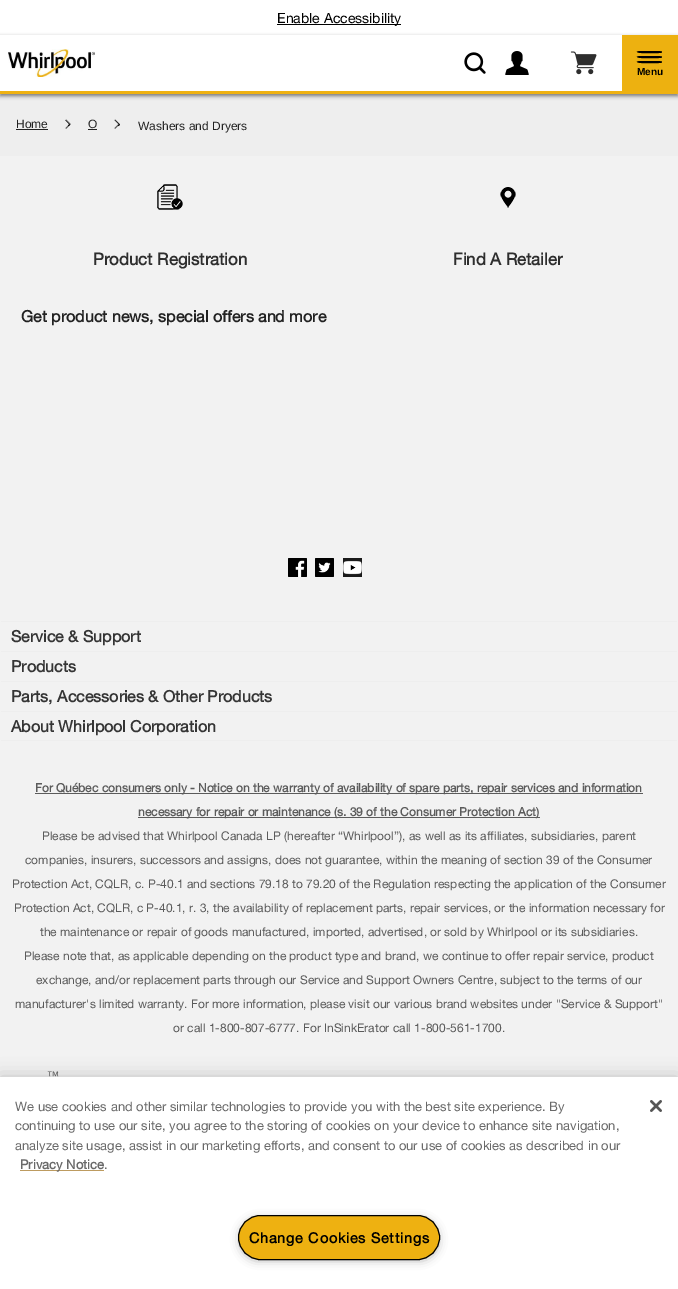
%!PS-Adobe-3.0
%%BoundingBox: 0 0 678 1289
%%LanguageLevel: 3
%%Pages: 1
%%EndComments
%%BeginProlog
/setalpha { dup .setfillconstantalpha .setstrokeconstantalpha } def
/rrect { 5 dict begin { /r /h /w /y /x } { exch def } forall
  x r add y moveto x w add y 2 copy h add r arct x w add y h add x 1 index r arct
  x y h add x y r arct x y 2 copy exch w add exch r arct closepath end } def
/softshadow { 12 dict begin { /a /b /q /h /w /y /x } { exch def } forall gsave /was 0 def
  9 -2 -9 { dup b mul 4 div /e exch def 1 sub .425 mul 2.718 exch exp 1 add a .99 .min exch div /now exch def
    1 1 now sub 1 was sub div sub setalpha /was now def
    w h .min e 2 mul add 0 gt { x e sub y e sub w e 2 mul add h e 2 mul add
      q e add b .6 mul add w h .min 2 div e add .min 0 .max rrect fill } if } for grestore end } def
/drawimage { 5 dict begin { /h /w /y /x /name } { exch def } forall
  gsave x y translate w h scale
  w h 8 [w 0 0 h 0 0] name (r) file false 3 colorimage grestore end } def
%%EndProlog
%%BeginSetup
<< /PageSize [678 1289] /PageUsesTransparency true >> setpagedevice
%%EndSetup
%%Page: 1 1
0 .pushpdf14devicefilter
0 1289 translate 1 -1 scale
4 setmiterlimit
1 setgray
0 0 678 1289 rectfill
0 setgray
277 24 124 1 rectfill
0.933 setgray
0 94 678 62 rectfill
gsave
newpath 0 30 moveto 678 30 lineto 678 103 lineto 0 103 lineto closepath 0 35 moveto 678 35 lineto 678 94 lineto 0 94 lineto closepath eoclip newpath
0 setgray
0 37 678 59 0 2 0.5 softshadow
grestore
0.933 0.694 0.067 setrgbcolor
0 91 678 3 rectfill
(images/1.raw) 8 49 87 28 drawimage
(images/2.raw) 464 52 22 22 drawimage
(images/3.raw) 505 51 24 24 drawimage
(images/4.raw) 570 51 27 24 drawimage
0.929 0.694 0.063 setrgbcolor
622 35 56 56 rectfill
0 setgray
newpath 643 51 moveto 659 51 lineto 662 51.5 lineto 662 52.5 lineto 660.5 53.5 639.5 53.5 638 52.5 curveto 634 51 642 51 643 51 curveto closepath 643 56 moveto 659 56 lineto 662 56.5 lineto 662 57.5 lineto 660.5 58.5 639.5 58.5 638 57.5 curveto 634 56 642 56 643 56 curveto closepath 643 61 moveto 659 61 lineto 662 61.5 lineto 662 62.5 lineto 660.5 63.5 639.5 63.5 638 62.5 curveto 634 61 642 61 643 61 curveto closepath fill
0.133 setgray
16 129 32 1 rectfill
(images/5.raw) 65 119 6 10 drawimage
(images/6.raw) 65 120 5 7 drawimage
88 129 9 1 rectfill
(images/5.raw) 114 119 6 10 drawimage
(images/7.raw) 115 120 5 7 drawimage
0.949 setgray
0 156 678 921 rectfill
(images/8.raw) 157 184 26 26 drawimage
(images/9.raw) 500 187 16 21 drawimage
(images/10.raw) 288 558 19 19 drawimage
(images/11.raw) 315 558 19 19 drawimage
(images/12.raw) 343 558 19 19 drawimage
0.933 setgray
1 621 676 1 rectfill
1 651 676 1 rectfill
1 681 676 1 rectfill
1 711 676 1 rectfill
1 740 676 1 rectfill
0.357 setgray
35 793 608 1 rectfill
138 817 402 1 rectfill
0 setgray
0 1077 678 212 0 9 0.2 softshadow
1 setgray
0 1077 678 212 rectfill
0.741 0.608 0.376 setrgbcolor
20 1170 84 1 rectfill
0.6 setgray
241 1220 196 39 19.5 5 1 softshadow
0.933 0.694 0.067 setrgbcolor
238.5 1215.5 201 44 22 rrect gsave fill grestore
0 setgray
stroke
(images/13.raw) 650 1100 12 12 drawimage
/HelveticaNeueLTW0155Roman-Regular [14 0 0 -14 0 0] selectfont
277 23 moveto (Enable Accessibility) show
/LiberationSans-Bold [10 0 0 -10 0 0] selectfont
637 75 moveto (Menu) show
/LiberationSans-Regular [12 0 0 -12 0 0] selectfont
0.133 setgray
16 128 moveto (Home) show
88 128 moveto (O) show
138 130 moveto (Washers and Dryers) show
/HelveticaNeueLTW0155Roman-Bold [16.75 0 0 -16.75 0 0] selectfont
0.18 setgray
93 265 moveto (Product Registration) show
453 265 moveto (Find A Retailer) show
/HelveticaNeueLTW0155Roman-Bold [16 0 0 -16 0 0] selectfont
0.133 setgray
21 322 moveto (Get product news, special offers and more) show
0.208 setgray
11 642 moveto (Service & Support) show
11 672 moveto (Products) show
11 702 moveto (Parts, Accessories & Other Products) show
11 732 moveto (About Whirlpool Corporation) show
/HelveticaNeueLTW0155Roman-Bold [12 0 0 -12 0 0] selectfont
0.357 setgray
35 792 moveto (For Québec consumers only - Notice on the warranty of availability of spare parts, repair services and information) show
138 816 moveto (necessary for repair or maintenance \(s. 39 of the Consumer Protection Act\)) show
/HelveticaNeueLTW0155Roman-Regular [12 0 0 -12 0 0] selectfont
42 840 moveto (Please be advised that Whirlpool Canada LP \(hereafter “Whirlpool”\), as well as its affiliates, subsidiaries, parent) show
25 864 moveto (companies, insurers, successors and assigns, does not guarantee, within the meaning of section 39 of the Consumer) show
12 888 moveto (Protection Act, CQLR, c. P-40.1 and sections 79.18 to 79.20 of the Regulation respecting the application of the Consumer) show
14 912 moveto (Protection Act, CQLR, c P-40.1, r. 3, the availability of replacement parts, repair services, or the information necessary for) show
40 936 moveto (the maintenance or repair of goods manufactured, imported, advertised, or sold by Whirlpool or its subsidiaries.) show
24 960 moveto (Please note that, as applicable depending on the product type and brand, we continue to offer repair service, product) show
36 984 moveto (exchange, and/or replacement parts through our Service and Support Owners Centre, subject to the terms of our) show
15 1008 moveto (manufacturer's limited warranty. For more information, please visit our various brand websites under "Service & Support") show
173 1032 moveto (or call 1-800-807-6777. For InSinkErator call 1-800-561-1700.) show
47 1080 moveto (™) show
/HelveticaNeueLTW0155Roman-Regular [13 0 0 -13 0 0] selectfont
0.412 setgray
15 1111 moveto (We use cookies and other similar technologies to provide you with the best site experience. By) show
15 1130 moveto (continuing to use our site, you agree to the storing of cookies on your device to enhance site navigation,) show
15 1150 moveto (analyze site usage, assist in our marketing efforts, and consent to our use of cookies as described in our) show
/HelveticaNeueLTW0155Roman-Bold [13 0 0 -13 0 0] selectfont
20 1169 moveto (Privacy Notice) show
/HelveticaNeueLTW0155Roman-Regular [13 0 0 -13 0 0] selectfont
104 1169 moveto (.) show
/HelveticaNeueLTW0155Roman-Bold [14.4 0 0 -14.4 0 0] selectfont
0 setgray
249 1243 moveto 0.75 0 (Change Cookies Settings) ashow
.poppdf14devicefilter showpage
%%EOF
